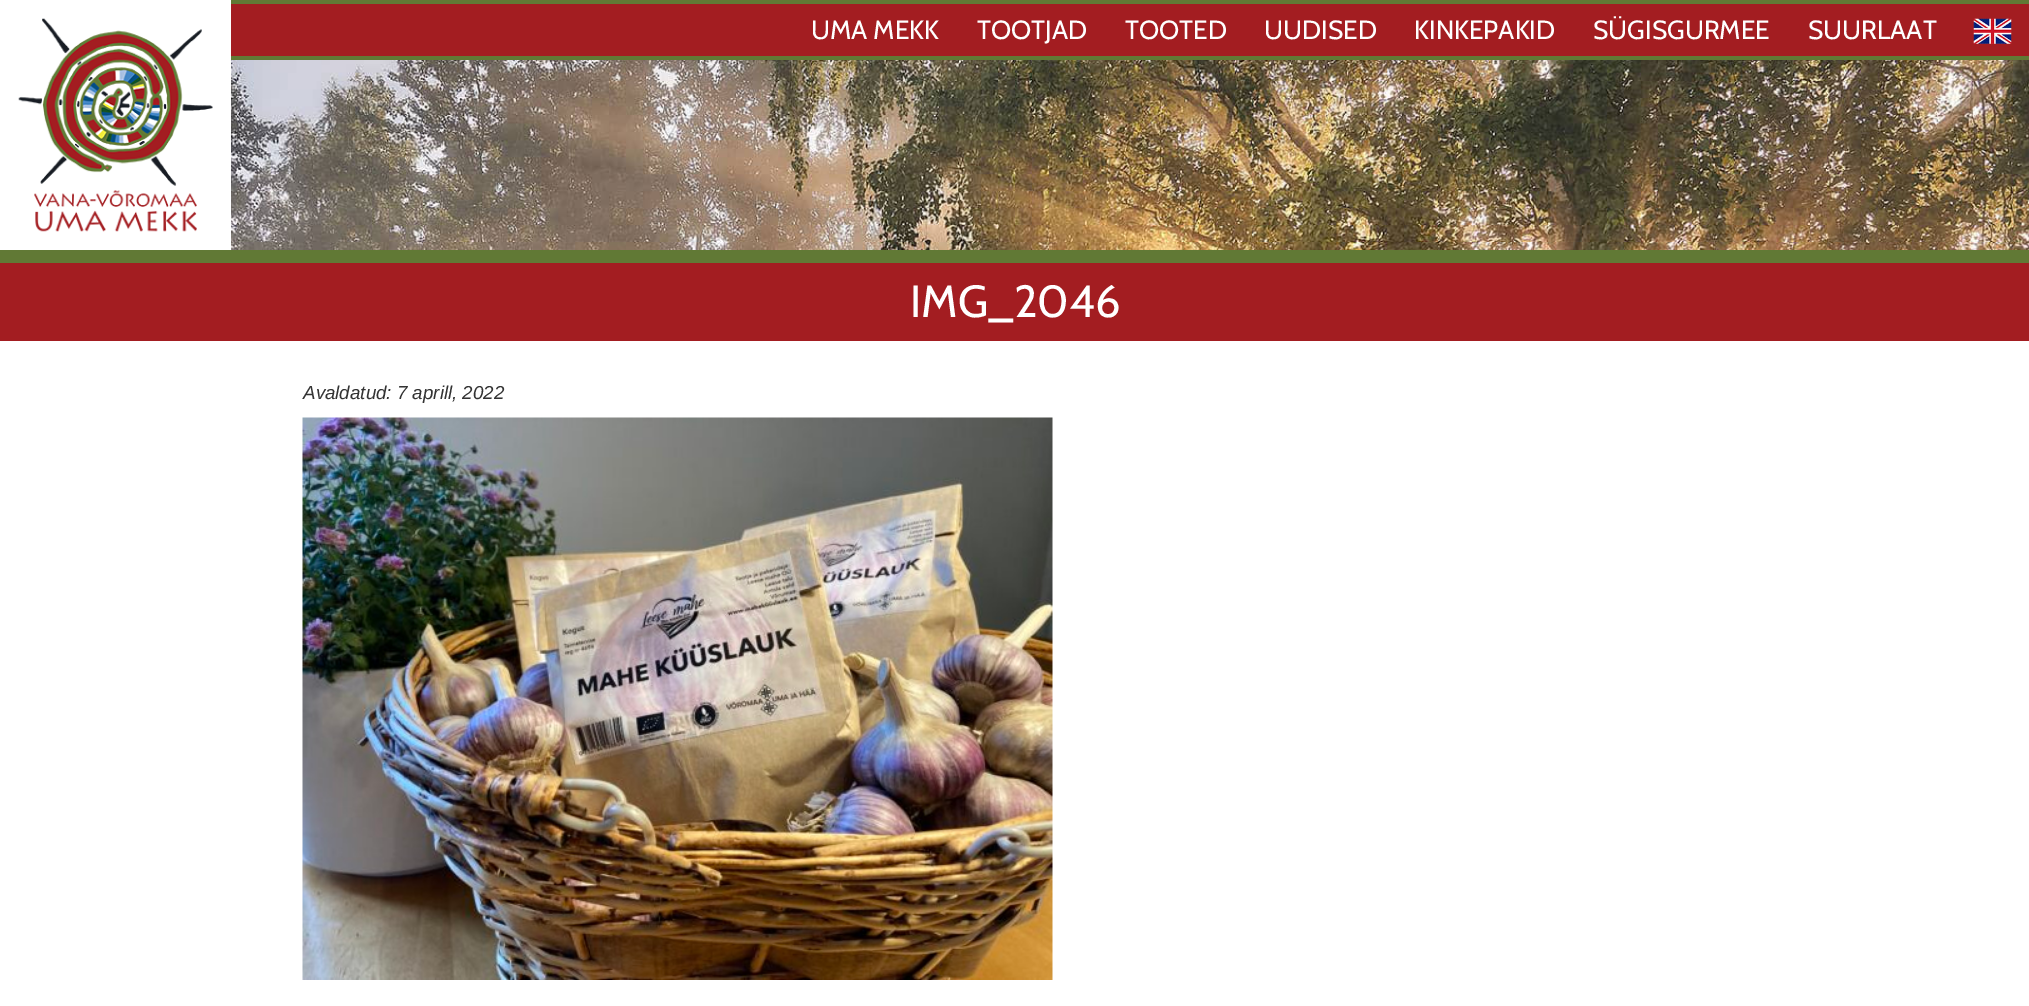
%!PS-Adobe-3.0
%%BoundingBox: 0 0 2029 1006
%%LanguageLevel: 3
%%Pages: 1
%%EndComments
%%BeginProlog
/drawimage { 5 dict begin { /h /w /y /x /name } { exch def } forall
  gsave x y translate w h scale
  w h 8 [w 0 0 h 0 0] name (r) file false 3 colorimage grestore end } def
%%EndProlog
%%BeginSetup
<< /PageSize [2029 1006] >> setpagedevice
%%EndSetup
%%Page: 1 1
0 1006 translate 1 -1 scale
4 setmiterlimit
1 setgray
0 0 2029 1006 rectfill
(images/1.raw) 231 60 1798 190 drawimage
(images/2.raw) 18 18 195 214 drawimage
0.639 0.114 0.129 setrgbcolor
231 4 1798 52 rectfill
0.38 0.475 0.208 setrgbcolor
231 0 1798 4 rectfill
231 56 1798 4 rectfill
(images/3.raw) 1973 18 39 26 drawimage
0 250 2029 13 rectfill
0.639 0.114 0.129 setrgbcolor
0 263 2029 78 rectfill
(images/4.raw) 302 417 751 563 drawimage
/Cabin-Regular [26.25 0 0 -26.25 0 0] selectfont
1 setgray
811 39 moveto (UMA MEKK) show
977 39 moveto (TOOTJAD) show
1125 39 moveto (TOOTED) show
1264 39 moveto (UUDISED) show
1414 39 moveto (KINKEPAKID) show
1593 39 moveto (SÜGISGURMEE) show
1808 39 moveto (SUURLAAT) show
/Cabin-Regular [45 0 0 -45 0 0] selectfont
910 317 moveto (IMG_2046) show
/LiberationSans-Italic [18.75 0 0 -18.75 0 0] selectfont
0.2 setgray
303 399 moveto (Avaldatud: 7 aprill, 2022) show
showpage
%%EOF
